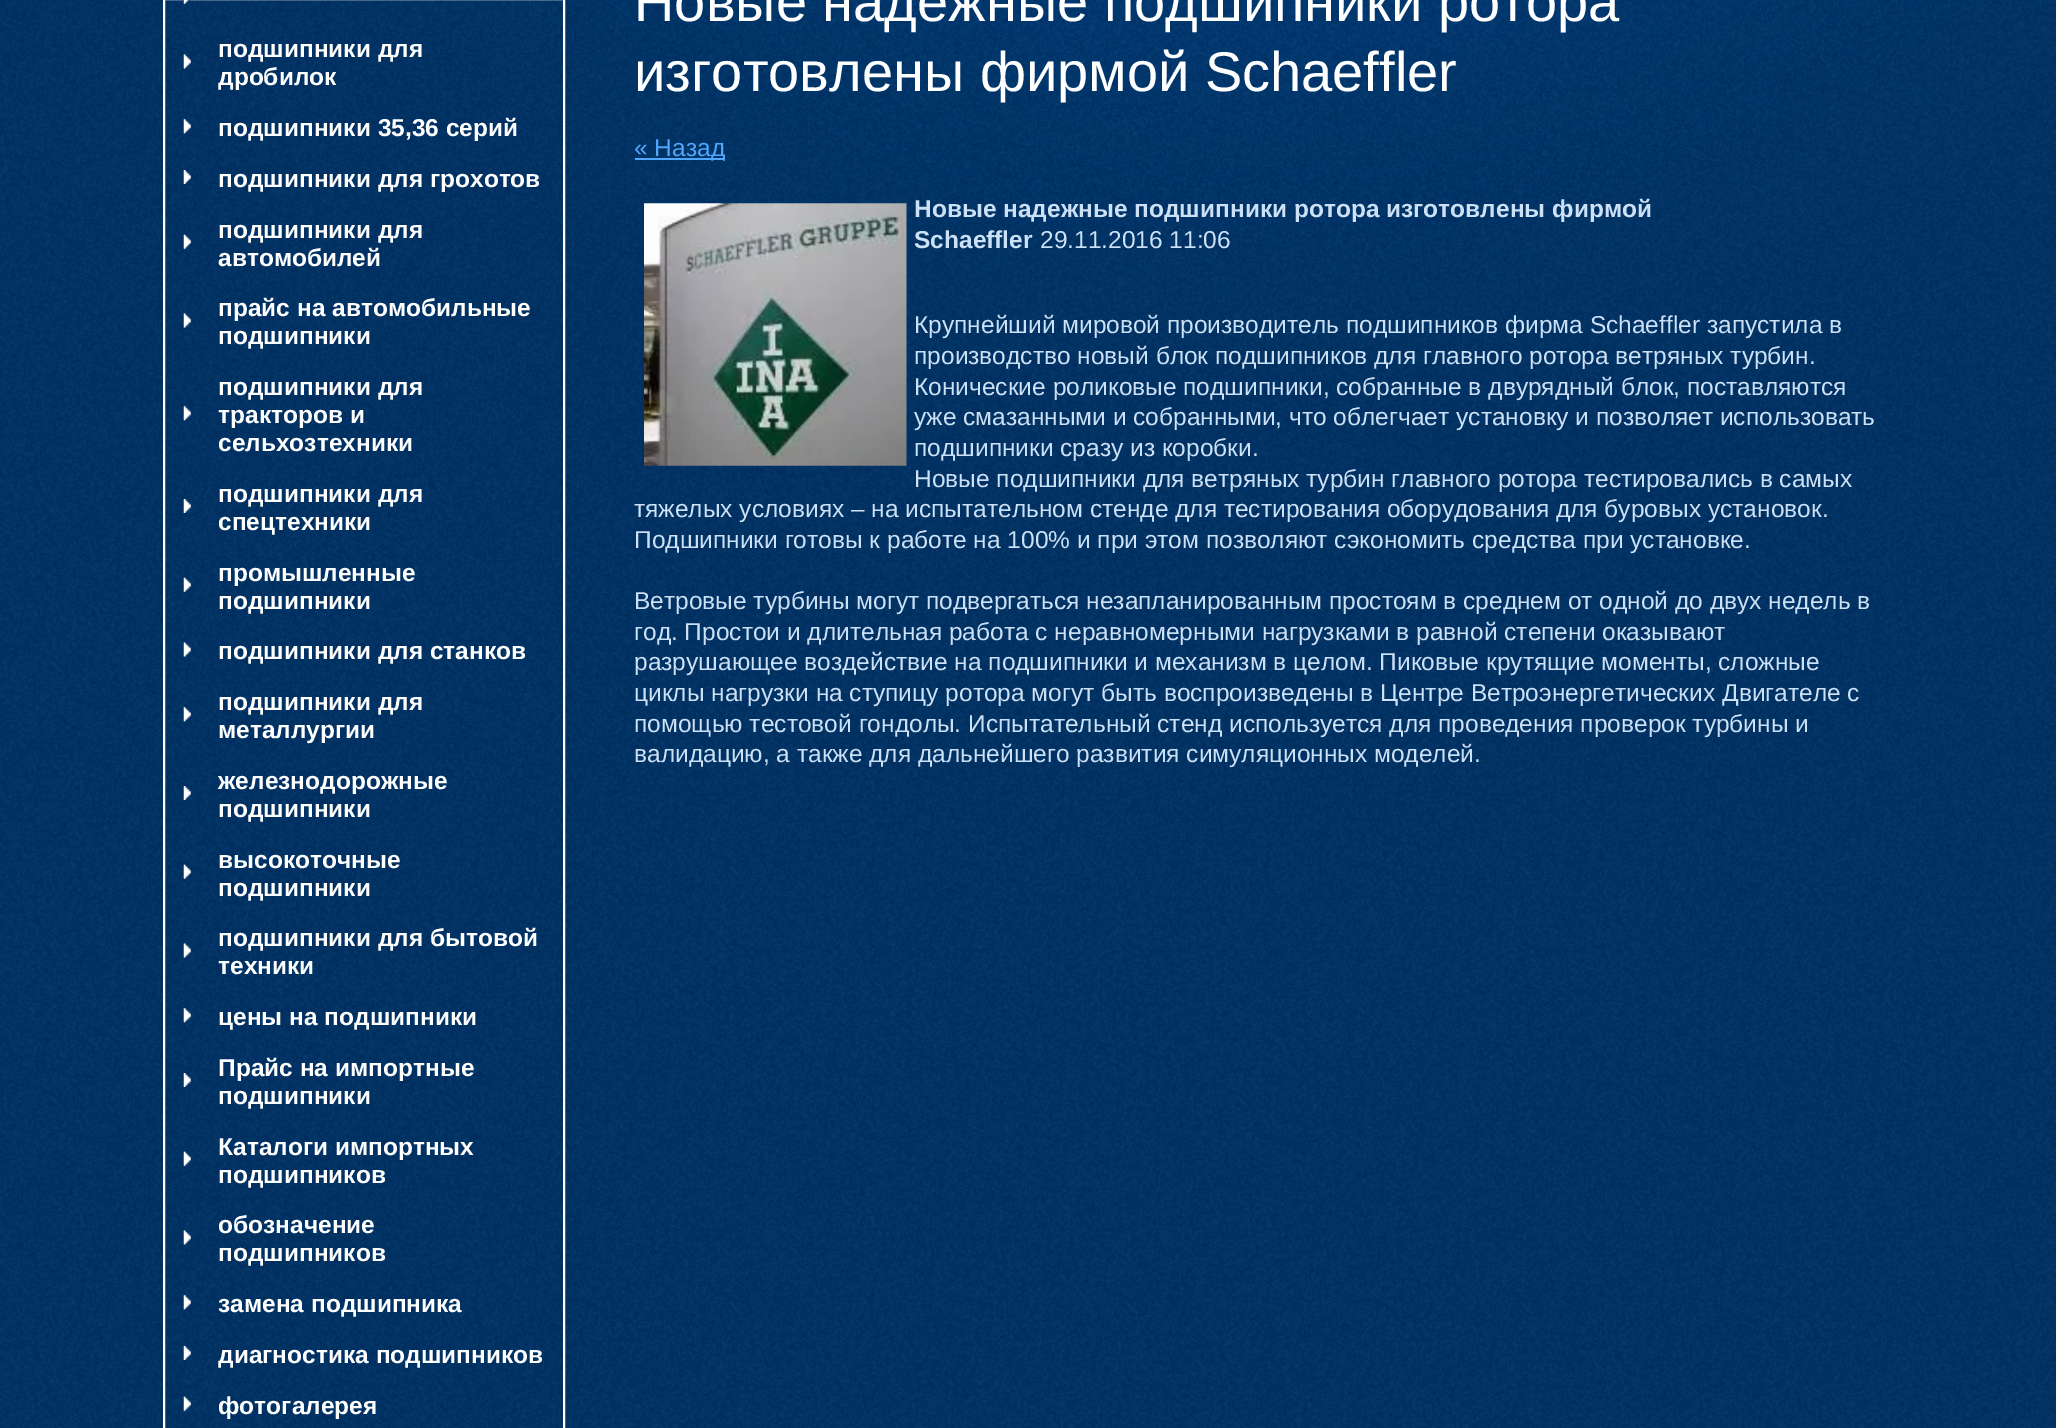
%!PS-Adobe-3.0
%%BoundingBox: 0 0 2056 1428
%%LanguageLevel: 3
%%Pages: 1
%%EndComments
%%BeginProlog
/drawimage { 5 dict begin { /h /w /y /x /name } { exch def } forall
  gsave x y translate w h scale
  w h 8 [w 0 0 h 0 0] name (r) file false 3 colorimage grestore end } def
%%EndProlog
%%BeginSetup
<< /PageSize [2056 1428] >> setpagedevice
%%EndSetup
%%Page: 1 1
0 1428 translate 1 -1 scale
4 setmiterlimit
1 setgray
0 0 2056 1428 rectfill
(images/1.raw) 0 472 2056 956 drawimage
(images/2.raw) 0 0 2056 473 drawimage
2 setlinewidth
164 -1 400 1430 rectstroke
(images/3.raw) 183 0 7 4 drawimage
(images/4.raw) 183 54 8 15 drawimage
(images/5.raw) 183 119 8 15 drawimage
(images/6.raw) 183 170 8 14 drawimage
(images/7.raw) 183 234 8 15 drawimage
(images/8.raw) 183 313 8 15 drawimage
(images/9.raw) 183 406 8 15 drawimage
(images/10.raw) 183 499 8 14 drawimage
(images/11.raw) 183 577 8 15 drawimage
(images/12.raw) 183 642 8 15 drawimage
(images/13.raw) 183 707 8 15 drawimage
(images/14.raw) 183 786 8 14 drawimage
(images/15.raw) 183 864 8 15 drawimage
(images/16.raw) 183 943 8 15 drawimage
(images/17.raw) 183 1008 8 15 drawimage
(images/18.raw) 183 1073 8 14 drawimage
(images/19.raw) 183 1151 8 15 drawimage
(images/20.raw) 183 1230 8 15 drawimage
(images/21.raw) 183 1295 8 15 drawimage
(images/22.raw) 183 1346 8 14 drawimage
(images/23.raw) 183 1396 8 15 drawimage
0.314 0.651 0.992 setrgbcolor
635 158 90 2 rectfill
(images/24.raw) 644 203 263 263 drawimage
/LiberationSans-Bold [24.5 0 0 -24.5 0 0] selectfont
1 setgray
218 57 moveto (подшипники для) show
218 85 moveto (дробилок) show
218 136 moveto (подшипники 35,36 серий) show
218 187 moveto (подшипники для грохотов) show
218 238 moveto (подшипники для) show
218 266 moveto (автомобилей) show
218 316 moveto (прайс на автомобильные) show
218 344 moveto (подшипники) show
218 395 moveto (подшипники для) show
218 423 moveto (тракторов и) show
218 451 moveto (сельхозтехники) show
218 502 moveto (подшипники для) show
218 530 moveto (спецтехники) show
218 581 moveto (промышленные) show
218 609 moveto (подшипники) show
218 659 moveto (подшипники для станков) show
218 710 moveto (подшипники для) show
218 738 moveto (металлургии) show
218 789 moveto (железнодорожные) show
218 817 moveto (подшипники) show
218 868 moveto (высокоточные) show
218 896 moveto (подшипники) show
218 946 moveto (подшипники для бытовой) show
218 974 moveto (техники) show
218 1025 moveto (цены на подшипники) show
218 1076 moveto (Прайс на импортные) show
218 1104 moveto (подшипники) show
218 1155 moveto (Каталоги импортных) show
218 1183 moveto (подшипников) show
218 1233 moveto (обозначение) show
218 1261 moveto (подшипников) show
218 1312 moveto (замена подшипника) show
218 1363 moveto (диагностика подшипников) show
218 1414 moveto (фотогалерея) show
/LiberationSans-Regular [56 0 0 -56 0 0] selectfont
634 21 moveto (Новые надежные подшипники ротора) show
634 91 moveto (изготовлены фирмой Schaeffler) show
/LiberationSans-Regular [24.5 0 0 -24.5 0 0] selectfont
0.314 0.651 0.992 setrgbcolor
634 156 moveto (« Назад) show
/LiberationSans-Bold [24.5 0 0 -24.5 0 0] selectfont
0.8 0.882 0.965 setrgbcolor
914 217 moveto (Новые надежные подшипники ротора изготовлены фирмой) show
914 248 moveto (Schaeffler) show
/LiberationSans-Regular [24.5 0 0 -24.5 0 0] selectfont
1040 248 moveto (29.11.2016 11:06) show
914 333 moveto (Крупнейший мировой производитель подшипников фирма Schaeffler запустила в) show
914 364 moveto (производство новый блок подшипников для главного ротора ветряных турбин.) show
914 395 moveto (Конические роликовые подшипники, собранные в двурядный блок, поставляются) show
914 425 moveto (уже смазанными и собранными, что облегчает установку и позволяет использовать) show
914 456 moveto (подшипники сразу из коробки.) show
914 487 moveto (Новые подшипники для ветряных турбин главного ротора тестировались в самых) show
634 517 moveto (тяжелых условиях – на испытательном стенде для тестирования оборудования для буровых установок.) show
634 548 moveto (Подшипники готовы к работе на 100% и при этом позволяют сэкономить средства при установке.) show
634 609 moveto (Ветровые турбины могут подвергаться незапланированным простоям в среднем от одной до двух недель в) show
634 640 moveto (год. Простои и длительная работа с неравномерными нагрузками в равной степени оказывают) show
634 670 moveto (разрушающее воздействие на подшипники и механизм в целом. Пиковые крутящие моменты, сложные) show
634 701 moveto (циклы нагрузки на ступицу ротора могут быть воспроизведены в Центре Ветроэнергетических Двигателе с) show
634 732 moveto (помощью тестовой гондолы. Испытательный стенд используется для проведения проверок турбины и) show
634 762 moveto (валидацию, а также для дальнейшего развития симуляционных моделей.) show
showpage
%%EOF
